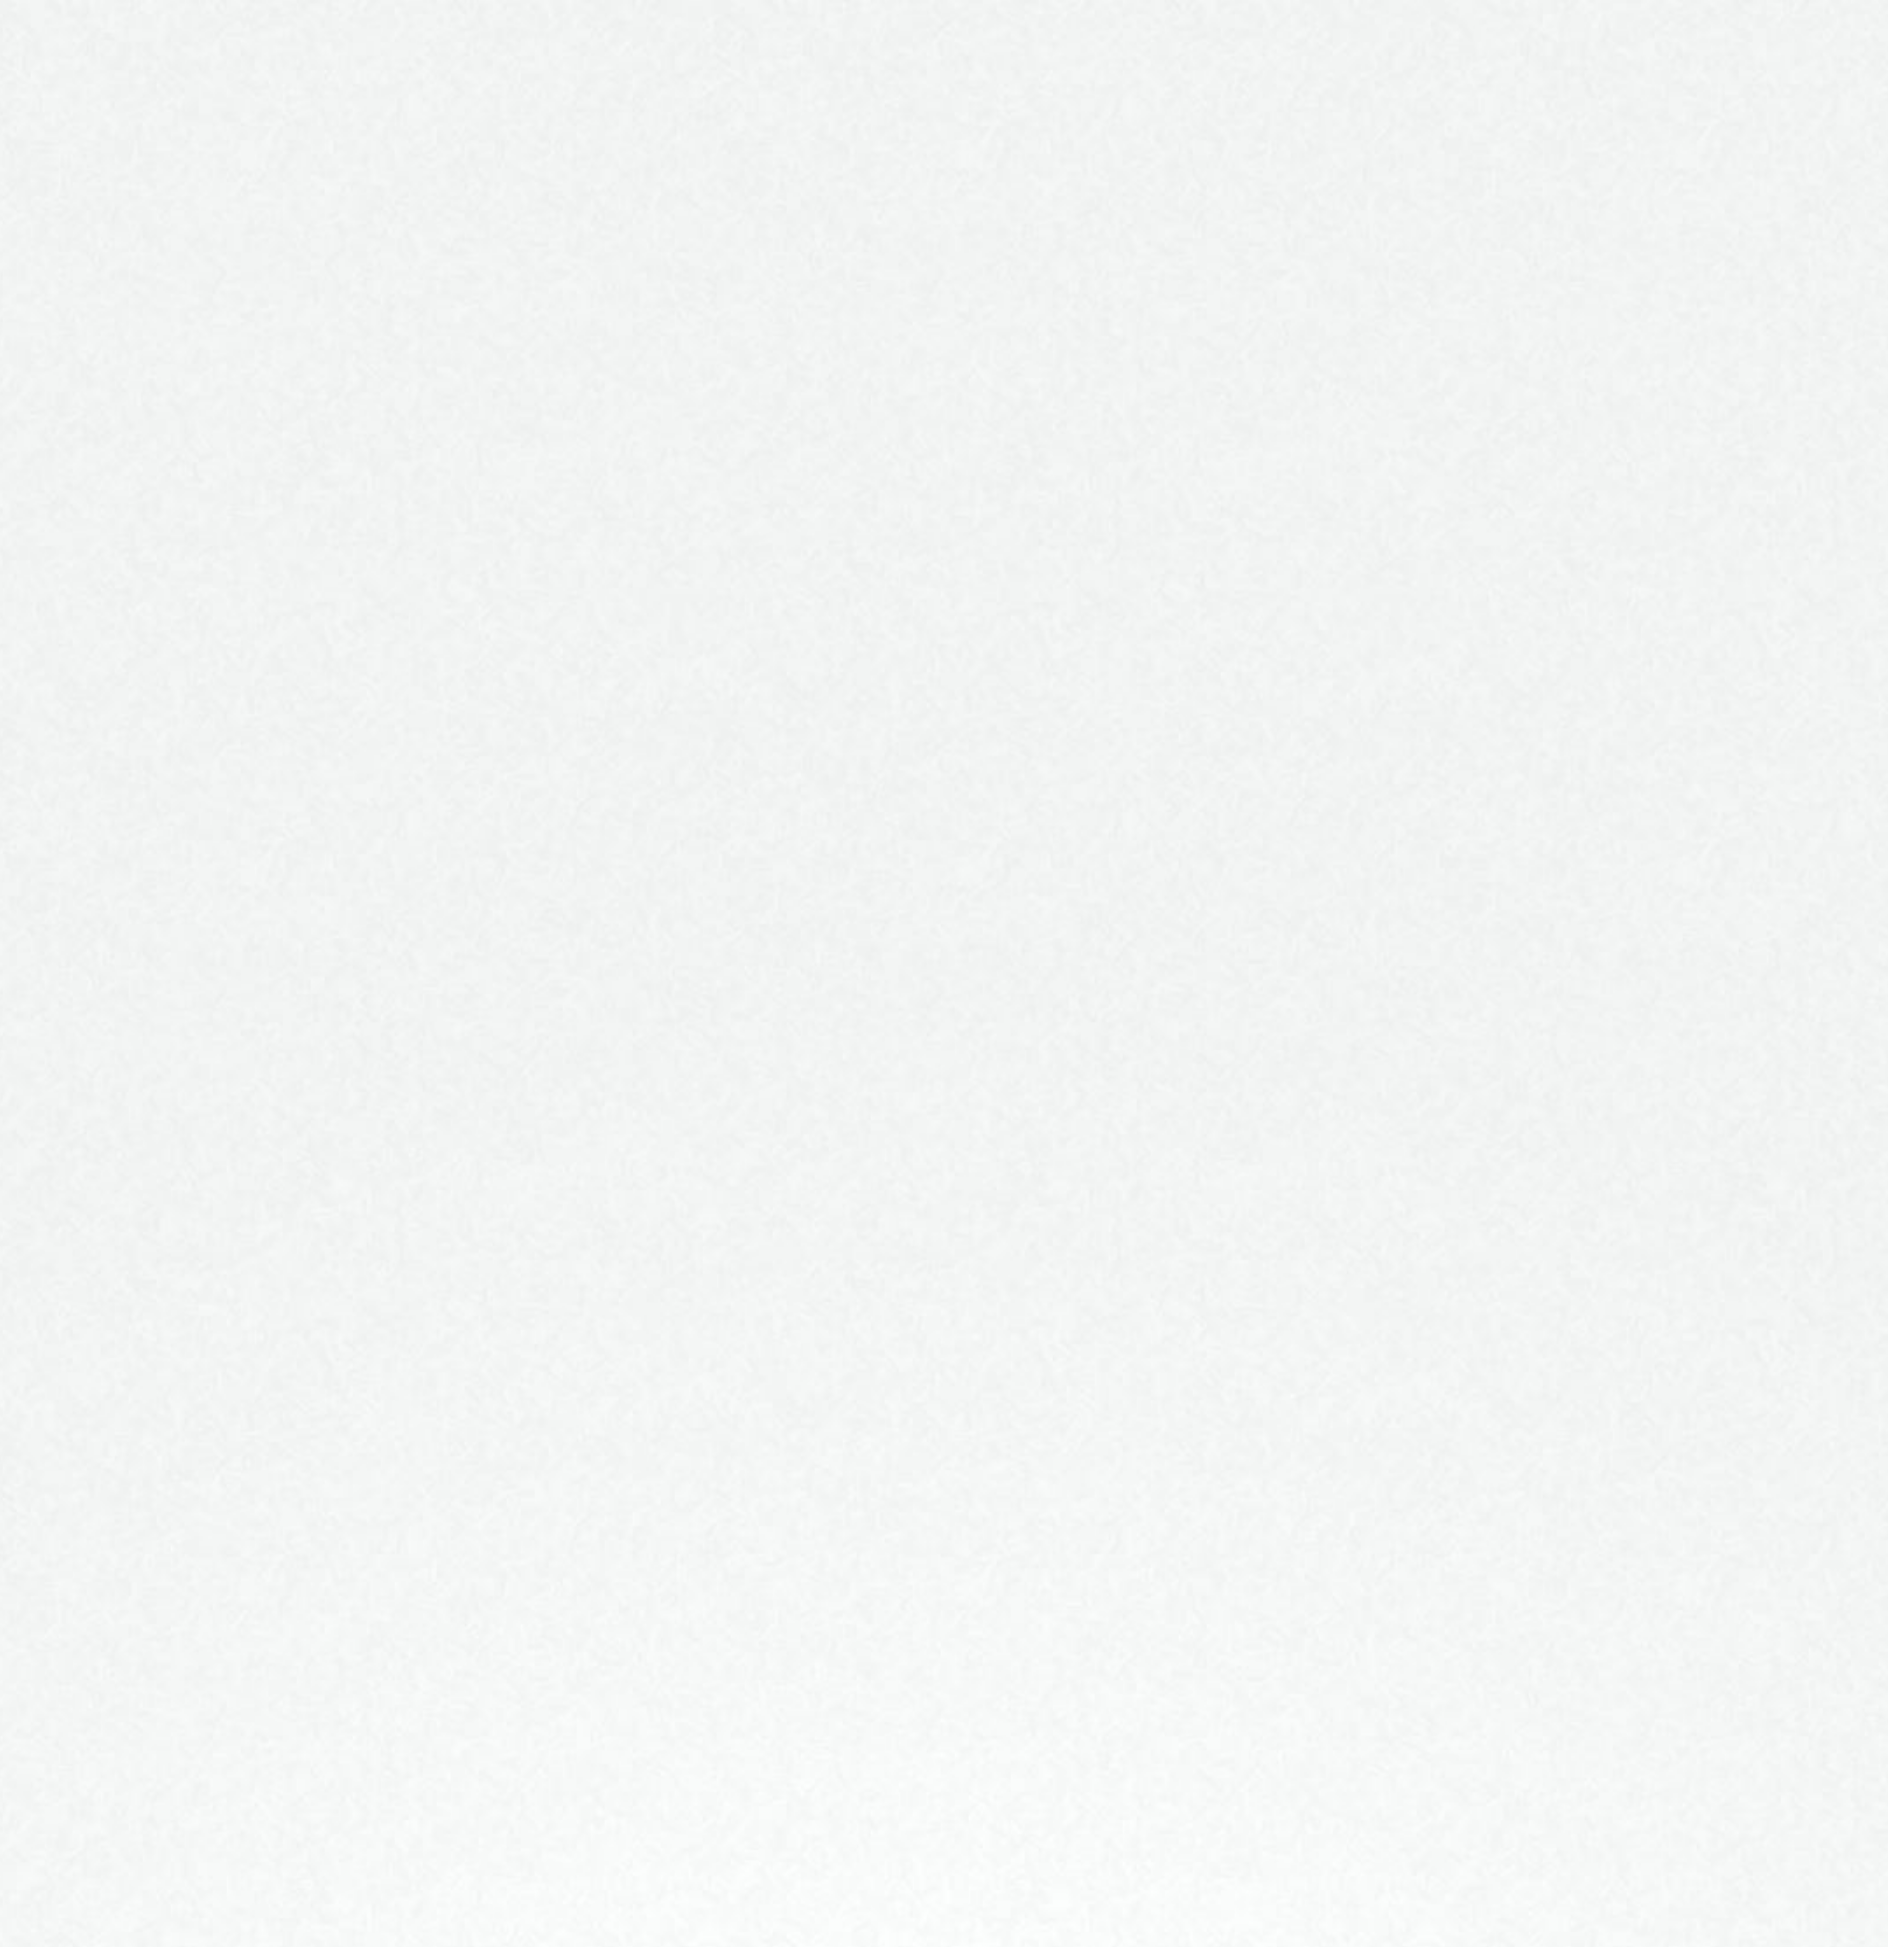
%!PS-Adobe-3.0
%%BoundingBox: 0 0 1888 1947
%%LanguageLevel: 3
%%Pages: 1
%%EndComments
%%BeginProlog
/drawimage { 5 dict begin { /h /w /y /x /name } { exch def } forall
  gsave x y translate w h scale
  w h 8 [w 0 0 h 0 0] name (r) file false 3 colorimage grestore end } def
%%EndProlog
%%BeginSetup
<< /PageSize [1888 1947] >> setpagedevice
%%EndSetup
%%Page: 1 1
0 1947 translate 1 -1 scale
4 setmiterlimit
1 setgray
0 0 1888 1947 rectfill
(images/1.raw) 0 0 1888 1947 drawimage
showpage
%%EOF
